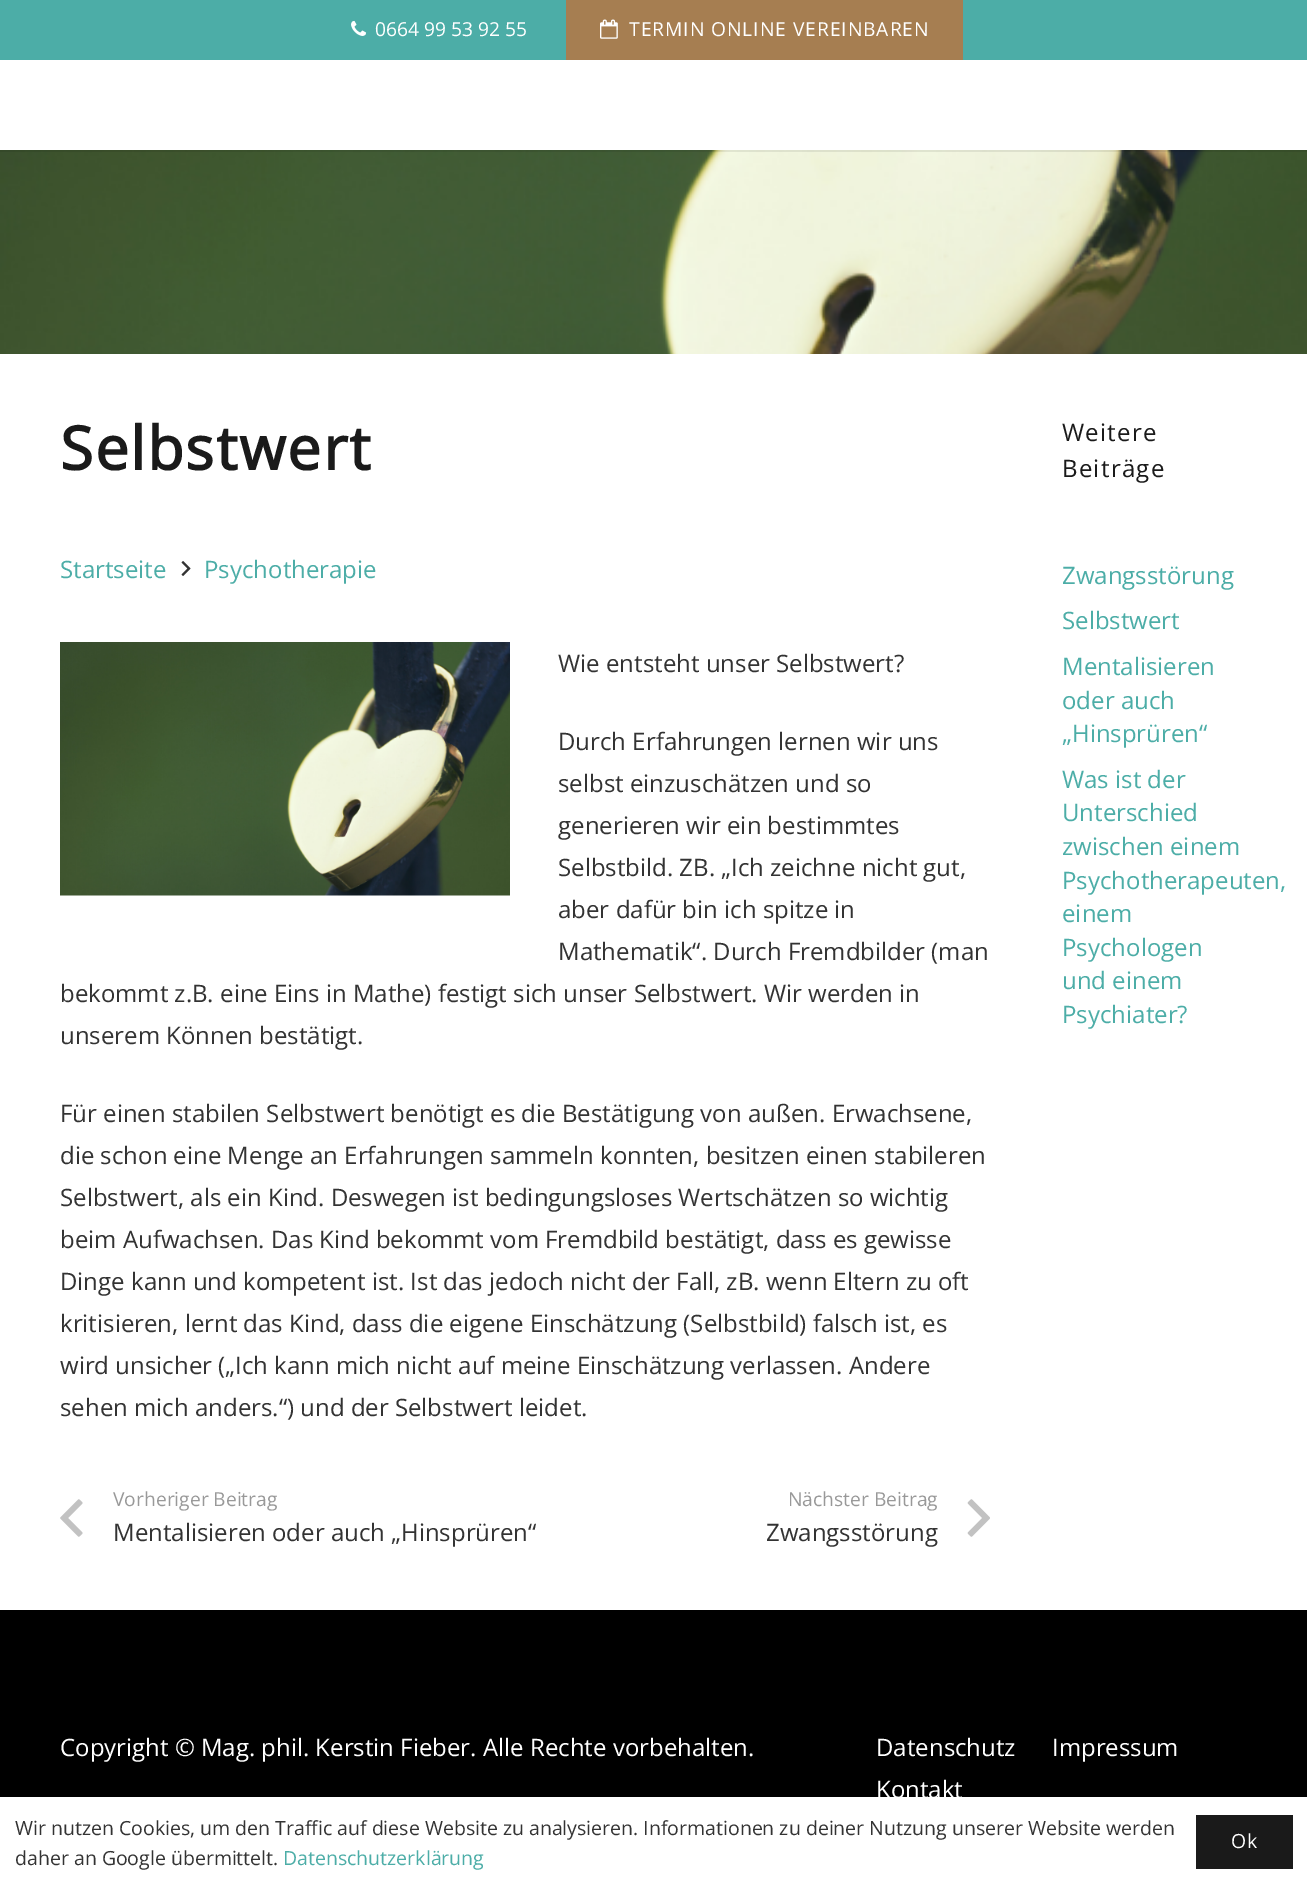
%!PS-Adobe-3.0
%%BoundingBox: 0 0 1307 1887
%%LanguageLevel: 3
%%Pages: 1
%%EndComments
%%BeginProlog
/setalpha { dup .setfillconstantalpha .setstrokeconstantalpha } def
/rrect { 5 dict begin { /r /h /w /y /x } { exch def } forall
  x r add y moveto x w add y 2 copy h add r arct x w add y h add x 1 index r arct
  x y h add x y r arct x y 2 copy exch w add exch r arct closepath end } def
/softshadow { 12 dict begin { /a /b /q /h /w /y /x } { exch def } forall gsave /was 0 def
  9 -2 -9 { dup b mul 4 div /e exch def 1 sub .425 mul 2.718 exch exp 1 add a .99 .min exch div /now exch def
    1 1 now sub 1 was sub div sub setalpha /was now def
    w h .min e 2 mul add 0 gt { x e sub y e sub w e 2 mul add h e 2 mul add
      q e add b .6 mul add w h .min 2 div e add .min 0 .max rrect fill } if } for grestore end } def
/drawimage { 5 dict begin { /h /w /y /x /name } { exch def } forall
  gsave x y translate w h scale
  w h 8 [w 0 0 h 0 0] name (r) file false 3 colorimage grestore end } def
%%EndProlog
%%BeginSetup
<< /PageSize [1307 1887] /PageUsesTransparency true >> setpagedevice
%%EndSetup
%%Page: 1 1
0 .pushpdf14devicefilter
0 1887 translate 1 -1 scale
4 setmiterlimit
1 setgray
0 0 1307 1887 rectfill
0.298 0.678 0.655 setrgbcolor
0 0 1307 60 rectfill
(images/1.raw) 351 20 16 16 drawimage
0.651 0.494 0.318 setrgbcolor
566 0 397 60 rectfill
(images/2.raw) 600 19 18 20 drawimage
(images/3.raw) 0 150 1307 204 drawimage
0.08 setalpha
0 setgray
0 150 1307 2 rectfill
1 setalpha
(images/4.raw) 181 561 10 15 drawimage
(images/5.raw) 60 642 450 254 drawimage
(images/6.raw) 60 1499 23 38 drawimage
(images/7.raw) 967 1499 23 38 drawimage
0 1610 1307 187 rectfill
0 1790 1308 90 0 11 0.15 softshadow
1 setgray
0 1797 1307 90 rectfill
0.102 setgray
1196 1815 97 54 rectfill
/OpenSans-Regular [19.25 0 0 -19.25 0 0] selectfont
1 setgray
375 36 moveto (0664 99 53 92 55) show
629 36 moveto 0.95 0 (TERMIN ONLINE VEREINBAREN) ashow
/OpenSans-Bold [60 0 0 -60 0 0] selectfont
0.102 setgray
60 470 moveto 1.75 0 (Selbstwert) ashow
/OpenSans-Regular [24 0 0 -24 0 0] selectfont
0.298 0.678 0.655 setrgbcolor
60 578 moveto (Startseite) show
204 578 moveto (Psychotherapie) show
0.2 setgray
558 672 moveto (Wie entsteht unser Selbstwert?) show
558 750 moveto (Durch Erfahrungen lernen wir uns) show
558 792 moveto (selbst einzuschätzen und so) show
558 834 moveto (generieren wir ein bestimmtes) show
558 876 moveto (Selbstbild. ZB. „Ich zeichne nicht gut,) show
558 918 moveto (aber dafür bin ich spitze in) show
558 960 moveto (Mathematik“. Durch Fremdbilder \(man) show
60 1002 moveto (bekommt z.B. eine Eins in Mathe\) festigt sich unser Selbstwert. Wir werden in) show
60 1044 moveto (unserem Können bestätigt.) show
60 1122 moveto (Für einen stabilen Selbstwert benötigt es die Bestätigung von außen. Erwachsene,) show
60 1164 moveto (die schon eine Menge an Erfahrungen sammeln konnten, besitzen einen stabileren) show
60 1206 moveto (Selbstwert, als ein Kind. Deswegen ist bedingungsloses Wertschätzen so wichtig) show
60 1248 moveto (beim Aufwachsen. Das Kind bekommt vom Fremdbild bestätigt, dass es gewisse) show
60 1290 moveto (Dinge kann und kompetent ist. Ist das jedoch nicht der Fall, zB. wenn Eltern zu oft) show
60 1332 moveto (kritisieren, lernt das Kind, dass die eigene Einschätzung \(Selbstbild\) falsch ist, es) show
60 1374 moveto (wird unsicher \(„Ich kann mich nicht auf meine Einschätzung verlassen. Andere) show
60 1416 moveto (sehen mich anders.“\) und der Selbstwert leidet.) show
/OpenSans-Regular [19.25 0 0 -19.25 0 0] selectfont
0.6 setgray
113 1506 moveto (Vorheriger Beitrag) show
/OpenSans-Regular [24 0 0 -24 0 0] selectfont
0.2 setgray
113 1541 moveto (Mentalisieren oder auch „Hinsprüren“) show
/OpenSans-Regular [19.25 0 0 -19.25 0 0] selectfont
0.6 setgray
788 1506 moveto (Nächster Beitrag) show
/OpenSans-Regular [24 0 0 -24 0 0] selectfont
0.2 setgray
766 1541 moveto (Zwangsstörung) show
0.102 setgray
1062 441 moveto 1.25 0 (Weitere) ashow
1062 477 moveto 1.25 0 (Beiträge) ashow
0.298 0.678 0.655 setrgbcolor
1062 584 moveto (Zwangsstörung) show
1062 629 moveto (Selbstwert) show
1062 675 moveto (Mentalisieren) show
1062 709 moveto (oder auch) show
1062 742 moveto („Hinsprüren“) show
1062 788 moveto (Was ist der) show
1062 821 moveto (Unterschied) show
1062 855 moveto (zwischen einem) show
1062 889 moveto (Psychotherapeuten,) show
1062 922 moveto (einem) show
1062 956 moveto (Psychologen) show
1062 989 moveto (und einem) show
1062 1023 moveto (Psychiater?) show
1 setgray
60 1756 moveto (Copyright © Mag. phil. Kerstin Fieber. Alle Rechte vorbehalten.) show
876 1756 moveto (Datenschutz) show
1052 1756 moveto (Impressum) show
876 1798 moveto (Kontakt) show
/OpenSans-Regular [19.5 0 0 -19.5 0 0] selectfont
0.2 setgray
15 1835 moveto (Wir nutzen Cookies, um den Traffic auf diese Website zu analysieren. Informationen zu deiner Nutzung unserer Website werden) show
15 1865 moveto (daher an Google übermittelt.) show
0.298 0.678 0.655 setrgbcolor
283 1865 moveto (Datenschutzerklärung) show
1 setgray
1231 1848 moveto 1 0 (Ok) ashow
.poppdf14devicefilter showpage
%%EOF
